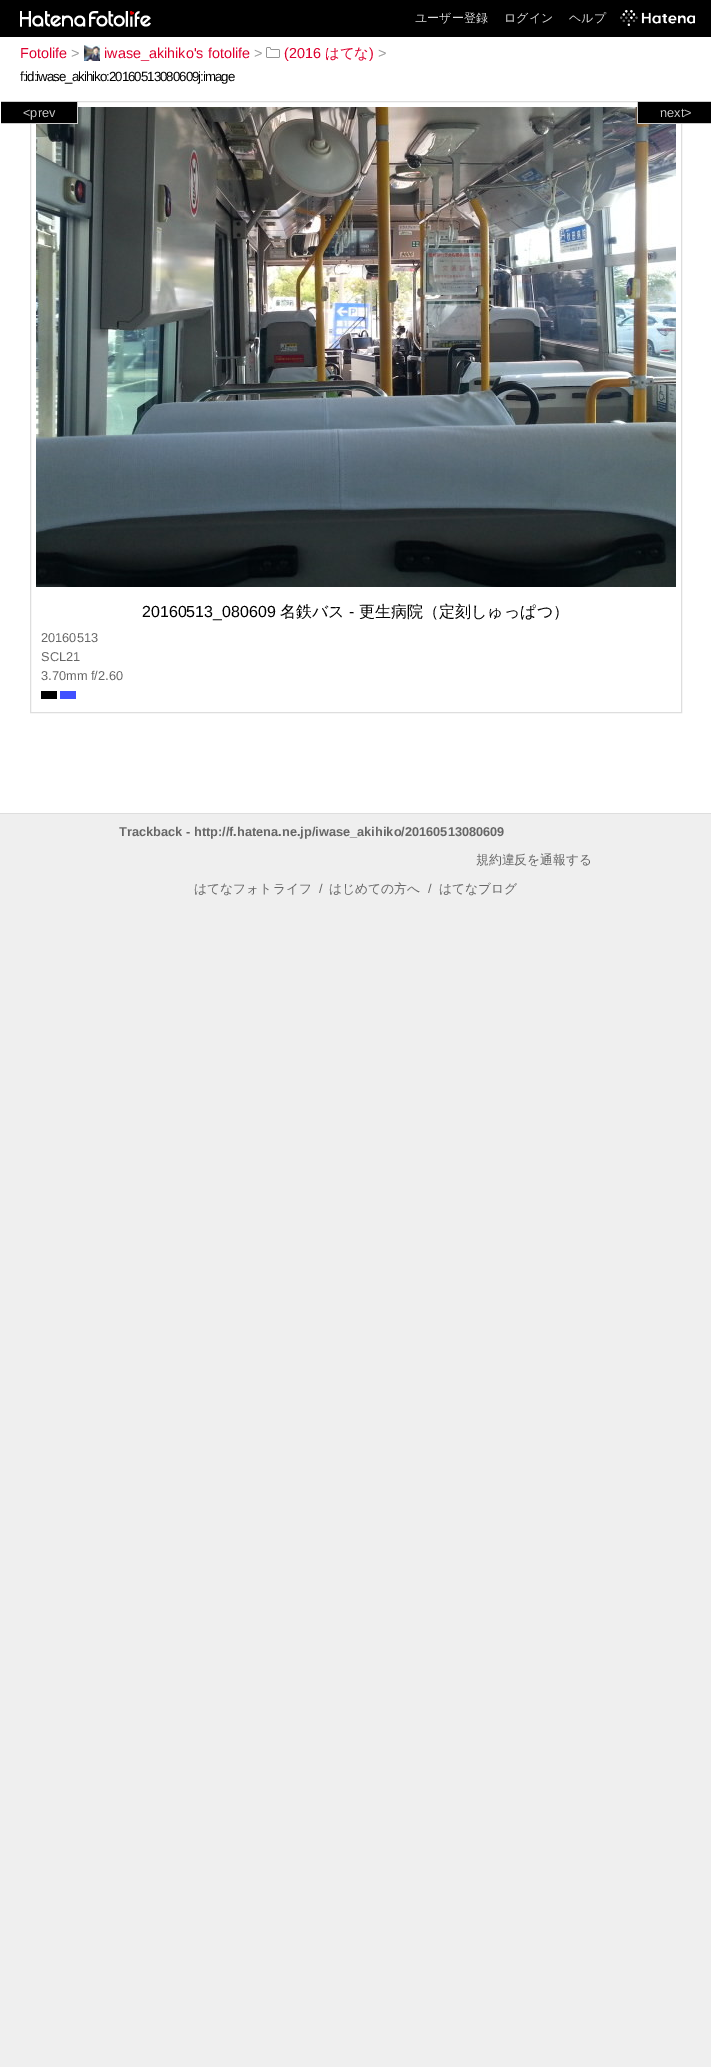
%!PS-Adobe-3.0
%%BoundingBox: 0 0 711 2067
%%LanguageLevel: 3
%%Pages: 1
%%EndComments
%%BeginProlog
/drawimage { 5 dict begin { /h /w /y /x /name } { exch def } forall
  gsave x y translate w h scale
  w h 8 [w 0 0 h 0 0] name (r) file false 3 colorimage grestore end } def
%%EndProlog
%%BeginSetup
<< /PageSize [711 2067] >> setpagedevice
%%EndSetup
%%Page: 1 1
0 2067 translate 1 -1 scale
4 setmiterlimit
0.937 setgray
0 0 711 2067 rectfill
0 setgray
0 0 711 37 rectfill
(images/1.raw) 20 11 66 16 drawimage
(images/2.raw) 89 11 62 16 drawimage
(images/3.raw) 620 10 75 16 drawimage
1 setgray
0 37 711 776 rectfill
(images/4.raw) 84 45 16 16 drawimage
(images/5.raw) 266 47 14 11 drawimage
0.871 setgray
0 813 711 1 rectfill
30.5 101.5 651 611 rectstroke
(images/6.raw) 36 107 640 480 drawimage
0 setgray
1 102 76 21 rectfill
0.8 setgray
1 101 77 1 rectfill
77 101 1 23 rectfill
1 123 77 1 rectfill
0 setgray
638 102 73 21 rectfill
0.8 setgray
637 101 74 1 rectfill
637 123 74 1 rectfill
637 101 1 23 rectfill
0 setgray
41 691 16 8 rectfill
0.251 0.314 1 setrgbcolor
60 691 16 8 rectfill
/WenQuanYiZenHei-Medium [12 0 0 -12 0 0] selectfont
0.867 setgray
415 22 moveto (ユーザー登録) show
504 22 moveto (ログイン) show
569 22 moveto (ヘルプ) show
/LiberationSans-Regular [14.4 0 0 -14.4 0 0] selectfont
0.871 0 0.184 setrgbcolor
20 58 moveto (Fotolife) show
0.6 setgray
71 58 moveto (>) show
0.871 0 0.184 setrgbcolor
104 58 moveto (iwase_akihiko's fotolife) show
0.6 setgray
254 58 moveto (>) show
0.871 0 0.184 setrgbcolor
284 58 moveto (\(2016) show
/WenQuanYiZenHei-Medium [14.4 0 0 -14.4 0 0] selectfont
325 58 moveto (はてな) show
/LiberationSans-Regular [14.4 0 0 -14.4 0 0] selectfont
369 58 moveto (\)) show
0.6 setgray
378 58 moveto (>) show
/LiberationSans-Regular [13.3 0 0 -13.3 0 0] selectfont
0 setgray
20 81 moveto -1 0 (f:id:iwase_akihiko:20160513080609j:image) ashow
/LiberationSans-Regular [12.8 0 0 -12.8 0 0] selectfont
0.8 setgray
23 117 moveto (<prev) show
660 117 moveto (next>) show
/LiberationSans-Regular [16 0 0 -16 0 0] selectfont
0 setgray
142 617 moveto (20160513_080609) show
/WenQuanYiZenHei-Medium [16 0 0 -16 0 0] selectfont
280 617 moveto (名鉄バス) show
/LiberationSans-Regular [16 0 0 -16 0 0] selectfont
349 617 moveto (-) show
/WenQuanYiZenHei-Medium [16 0 0 -16 0 0] selectfont
359 617 moveto (更生病院（定刻しゅっぱつ）) show
/LiberationSans-Regular [12.8 0 0 -12.8 0 0] selectfont
0.4 setgray
41 642 moveto (20160513) show
41 661 moveto (SCL21) show
41 680 moveto (3.70mm f/2.60) show
/LiberationSans-Bold [12.8 0 0 -12.8 0 0] selectfont
119 836 moveto (Trackback - http://f.hatena.ne.jp/iwase_akihiko/20160513080609) show
/WenQuanYiZenHei-Medium [12.8 0 0 -12.8 0 0] selectfont
476 864 moveto (規約違反を通報する) show
194 893 moveto (はてなフォトライフ) show
/LiberationSans-Regular [12.8 0 0 -12.8 0 0] selectfont
319 893 moveto (/) show
/WenQuanYiZenHei-Medium [12.8 0 0 -12.8 0 0] selectfont
329 893 moveto (はじめての方へ) show
/LiberationSans-Regular [12.8 0 0 -12.8 0 0] selectfont
428 893 moveto (/) show
/WenQuanYiZenHei-Medium [12.8 0 0 -12.8 0 0] selectfont
439 893 moveto (はてなブログ) show
showpage
%%EOF
